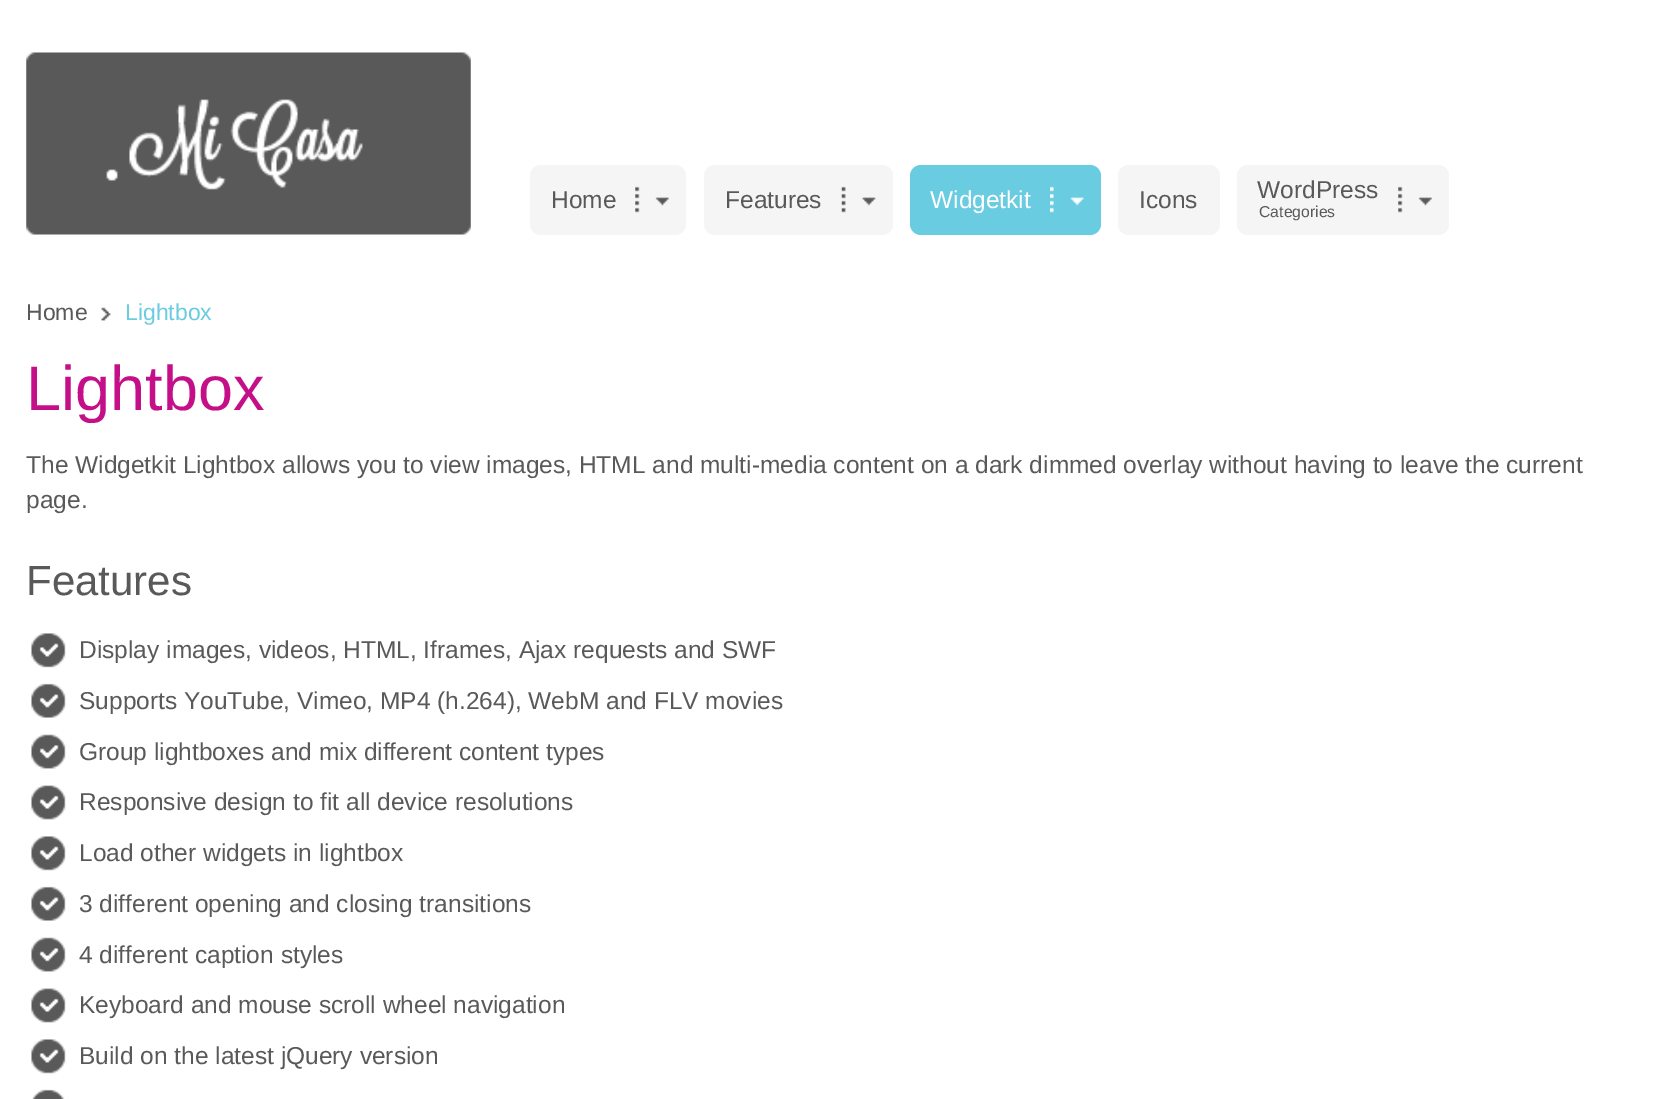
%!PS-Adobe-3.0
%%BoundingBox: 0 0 1653 1099
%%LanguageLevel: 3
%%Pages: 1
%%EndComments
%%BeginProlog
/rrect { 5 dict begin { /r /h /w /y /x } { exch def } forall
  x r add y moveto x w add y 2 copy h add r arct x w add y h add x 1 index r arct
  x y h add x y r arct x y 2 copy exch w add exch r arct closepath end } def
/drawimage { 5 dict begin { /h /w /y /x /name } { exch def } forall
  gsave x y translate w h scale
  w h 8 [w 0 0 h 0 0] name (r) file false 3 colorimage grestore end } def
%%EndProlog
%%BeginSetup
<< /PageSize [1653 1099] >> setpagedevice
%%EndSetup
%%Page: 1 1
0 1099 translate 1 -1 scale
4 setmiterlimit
1 setgray
0 0 1653 1099 rectfill
(images/1.raw) 26 52 445 183 drawimage
0.961 setgray
530 165 156 70 11 rrect fill
(images/2.raw) 635 186 34 27 drawimage
704 165 189 70 11 rrect fill
(images/3.raw) 841 186 35 27 drawimage
0.416 0.8 0.882 setrgbcolor
910 165 191 70 11 rrect fill
(images/4.raw) 1050 186 34 27 drawimage
0.961 setgray
1118 165 102 70 11 rrect fill
1237 165 212 70 11 rrect fill
(images/5.raw) 1398 186 34 27 drawimage
(images/6.raw) 101 307 10 14 drawimage
(images/7.raw) 31 633 35 35 drawimage
(images/8.raw) 31 683 35 35 drawimage
(images/9.raw) 31 734 35 35 drawimage
(images/10.raw) 31 785 35 35 drawimage
(images/7.raw) 31 836 35 35 drawimage
(images/8.raw) 31 886 35 35 drawimage
(images/9.raw) 31 937 35 35 drawimage
(images/10.raw) 31 988 35 35 drawimage
(images/7.raw) 31 1039 35 35 drawimage
(images/11.raw) 32 1089 33 10 drawimage
/LiberationSans-Regular [24.5 0 0 -24.5 0 0] selectfont
0.349 setgray
551 208 moveto (Home) show
725 208 moveto (Features) show
1 setgray
930 208 moveto (Widgetkit) show
0.349 setgray
1139 208 moveto (Icons) show
1257 198 moveto (WordPress) show
/LiberationSans-Regular [15.75 0 0 -15.75 0 0] selectfont
1259 217 moveto (Categories) show
/LiberationSans-Regular [23 0 0 -23 0 0] selectfont
26 320 moveto (Home) show
0.416 0.8 0.882 setrgbcolor
125 320 moveto (Lightbox) show
/LiberationSans-Regular [63 0 0 -63 0 0] selectfont
0.773 0.059 0.537 setrgbcolor
26 410 moveto (Lightbox) show
/LiberationSans-Regular [24.5 0 0 -24.5 0 0] selectfont
0.349 setgray
26 473 moveto (The Widgetkit Lightbox allows you to view images, HTML and multi-media content on a dark dimmed overlay without having to leave the current) show
26 508 moveto (page.) show
/LiberationSans-Regular [42 0 0 -42 0 0] selectfont
26 595 moveto (Features) show
/LiberationSans-Regular [24.5 0 0 -24.5 0 0] selectfont
79 658 moveto (Display images, videos, HTML, Iframes, Ajax requests and SWF) show
79 709 moveto (Supports YouTube, Vimeo, MP4 \(h.264\), WebM and FLV movies) show
79 760 moveto (Group lightboxes and mix different content types) show
79 810 moveto (Responsive design to fit all device resolutions) show
79 861 moveto (Load other widgets in lightbox) show
79 912 moveto (3 different opening and closing transitions) show
79 963 moveto (4 different caption styles) show
79 1013 moveto (Keyboard and mouse scroll wheel navigation) show
79 1064 moveto (Build on the latest jQuery version) show
showpage
%%EOF
